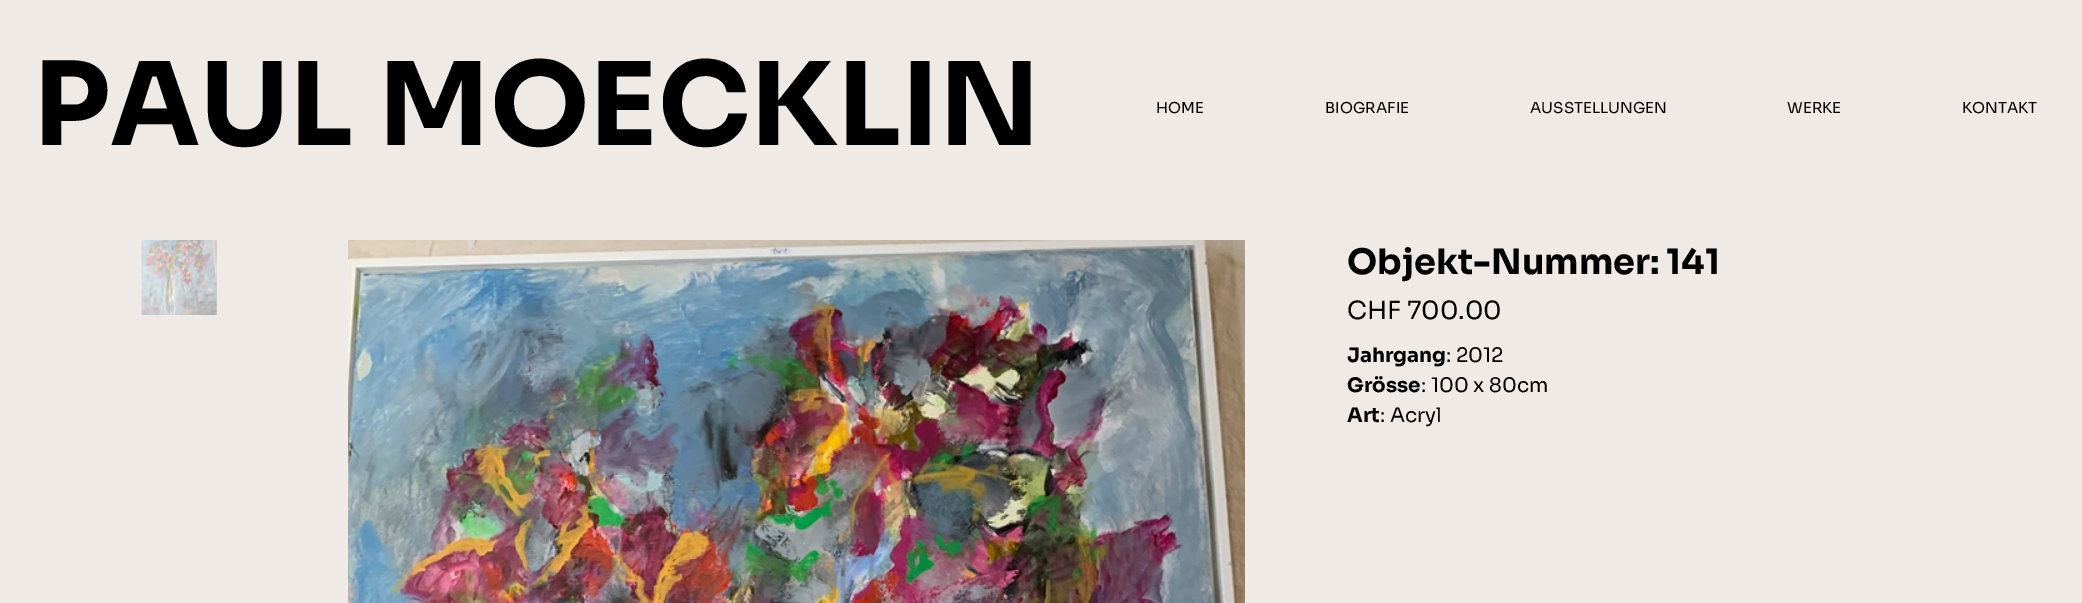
%!PS-Adobe-3.0
%%BoundingBox: 0 0 2082 603
%%LanguageLevel: 3
%%Pages: 1
%%EndComments
%%BeginProlog
/drawimage { 5 dict begin { /h /w /y /x /name } { exch def } forall
  gsave x y translate w h scale
  w h 8 [w 0 0 h 0 0] name (r) file false 3 colorimage grestore end } def
%%EndProlog
%%BeginSetup
<< /PageSize [2082 603] >> setpagedevice
%%EndSetup
%%Page: 1 1
0 603 translate 1 -1 scale
4 setmiterlimit
0.937 0.918 0.898 setrgbcolor
0 0 2082 603 rectfill
(images/1.raw) 141 240 76 75 drawimage
(images/2.raw) 348 240 897 363 drawimage
/Sora-Bold [115.25 0 0 -115.25 0 0] selectfont
0 setgray
33 145 moveto (PAUL MOECKLIN) show
/Sora-Regular [15 0 0 -15 0 0] selectfont
1156 113 moveto (HOME) show
1325 113 moveto (BIOGRAFIE) show
1530 113 moveto (AUSSTELLUNGEN) show
1787 113 moveto (WERKE) show
1962 113 moveto (KONTAKT) show
/Sora-Bold [35 0 0 -35 0 0] selectfont
1347 274 moveto (Objekt-Nummer: 141) show
/Sora-Regular [25 0 0 -25 0 0] selectfont
1347 319 moveto (CHF 700.00) show
/Sora-Bold [20 0 0 -20 0 0] selectfont
1347 362 moveto (Jahrgang) show
/Sora-Regular [20 0 0 -20 0 0] selectfont
1446 362 moveto (: 2012) show
/Sora-Bold [20 0 0 -20 0 0] selectfont
1347 392 moveto (Grösse) show
/Sora-Regular [20 0 0 -20 0 0] selectfont
1421 392 moveto (: 100 x 80cm) show
/Sora-Bold [20 0 0 -20 0 0] selectfont
1347 422 moveto (Art) show
/Sora-Regular [20 0 0 -20 0 0] selectfont
1380 422 moveto (: Acryl) show
showpage
%%EOF
